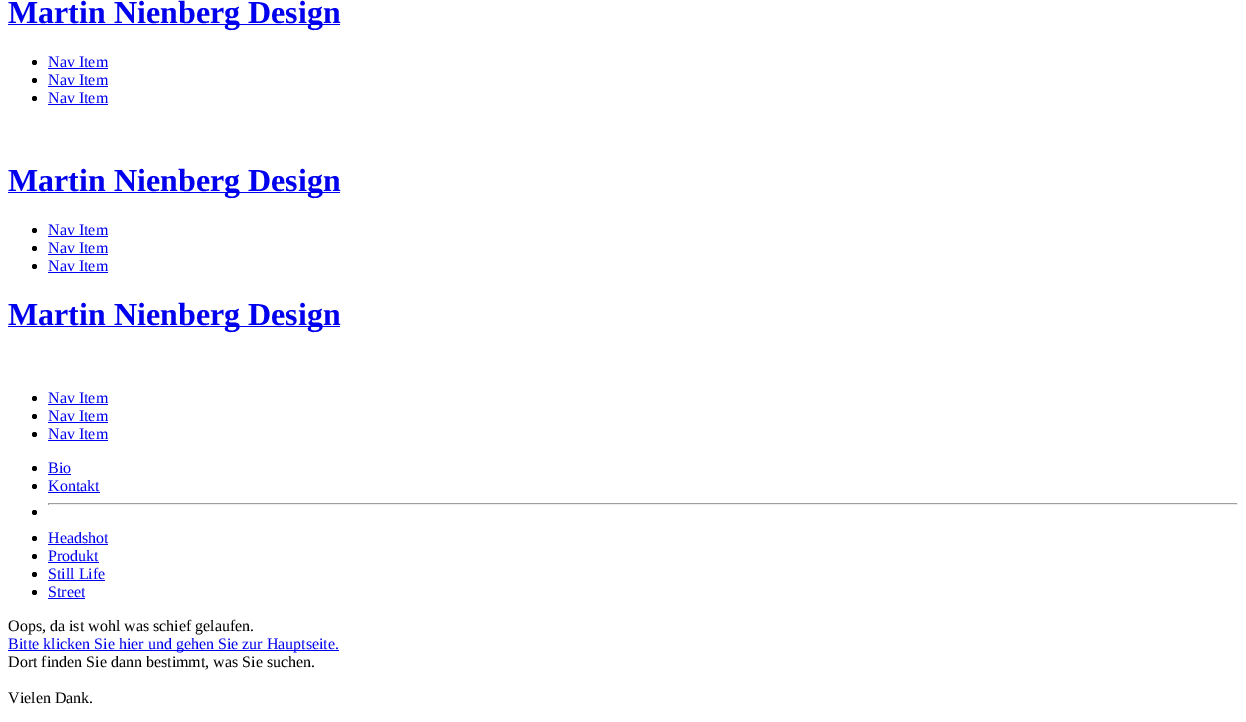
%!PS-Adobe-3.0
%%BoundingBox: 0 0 1246 722
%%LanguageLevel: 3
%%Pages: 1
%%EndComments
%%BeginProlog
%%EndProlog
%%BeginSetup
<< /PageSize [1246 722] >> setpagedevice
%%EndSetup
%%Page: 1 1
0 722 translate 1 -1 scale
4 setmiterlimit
1 setgray
0 0 1246 722 rectfill
0 0 0.933 setrgbcolor
8 24 332 1 rectfill
0 setgray
newpath 34.5 62.5 2.5 0 360 arc closepath fill
0 0 0.933 setrgbcolor
48 68 60 1 rectfill
0 setgray
newpath 34.5 80.5 2.5 0 360 arc closepath fill
0 0 0.933 setrgbcolor
48 86 60 1 rectfill
0 setgray
newpath 34.5 98.5 2.5 0 360 arc closepath fill
0 0 0.933 setrgbcolor
48 104 60 1 rectfill
8 192 332 1 rectfill
0 setgray
newpath 34.5 230.5 2.5 0 360 arc closepath fill
0 0 0.933 setrgbcolor
48 236 60 1 rectfill
0 setgray
newpath 34.5 248.5 2.5 0 360 arc closepath fill
0 0 0.933 setrgbcolor
48 254 60 1 rectfill
0 setgray
newpath 34.5 266.5 2.5 0 360 arc closepath fill
0 0 0.933 setrgbcolor
48 272 60 1 rectfill
8 326 332 1 rectfill
0 setgray
newpath 34.5 398.5 2.5 0 360 arc closepath fill
0 0 0.933 setrgbcolor
48 404 60 1 rectfill
0 setgray
newpath 34.5 416.5 2.5 0 360 arc closepath fill
0 0 0.933 setrgbcolor
48 422 60 1 rectfill
0 setgray
newpath 34.5 434.5 2.5 0 360 arc closepath fill
0 0 0.933 setrgbcolor
48 440 60 1 rectfill
0 setgray
newpath 34.5 468.5 2.5 0 360 arc closepath fill
0 0 0.933 setrgbcolor
48 474 23 1 rectfill
0 setgray
newpath 34.5 486.5 2.5 0 360 arc closepath fill
0 0 0.933 setrgbcolor
48 492 52 1 rectfill
0.624 setgray
48 503 1190 1 rectfill
0.933 setgray
1237 503 1 2 rectfill
48 504 1190 1 rectfill
0.624 setgray
48 503 1 2 rectfill
0 setgray
newpath 34.5 512.5 2.5 0 360 arc closepath fill
newpath 34.5 538.5 2.5 0 360 arc closepath fill
0 0 0.933 setrgbcolor
48 544 60 1 rectfill
0 setgray
newpath 34.5 556.5 2.5 0 360 arc closepath fill
0 0 0.933 setrgbcolor
48 562 51 1 rectfill
0 setgray
newpath 34.5 574.5 2.5 0 360 arc closepath fill
0 0 0.933 setrgbcolor
48 580 57 1 rectfill
0 setgray
newpath 34.5 592.5 2.5 0 360 arc closepath fill
0 0 0.933 setrgbcolor
48 598 37 1 rectfill
8 650 331 1 rectfill
/LiberationSerif-Bold [32 0 0 -32 0 0] selectfont
8 23 moveto (Martin Nienberg Design) show
/LiberationSerif-Regular [16 0 0 -16 0 0] selectfont
48 67 moveto (Nav Item) show
48 85 moveto (Nav Item) show
48 103 moveto (Nav Item) show
/LiberationSerif-Bold [32 0 0 -32 0 0] selectfont
8 191 moveto (Martin Nienberg Design) show
/LiberationSerif-Regular [16 0 0 -16 0 0] selectfont
48 235 moveto (Nav Item) show
48 253 moveto (Nav Item) show
48 271 moveto (Nav Item) show
/LiberationSerif-Bold [32 0 0 -32 0 0] selectfont
8 325 moveto (Martin Nienberg Design) show
/LiberationSerif-Regular [16 0 0 -16 0 0] selectfont
48 403 moveto (Nav Item) show
48 421 moveto (Nav Item) show
48 439 moveto (Nav Item) show
48 473 moveto (Bio) show
48 491 moveto (Kontakt) show
48 543 moveto (Headshot) show
48 561 moveto (Produkt) show
48 579 moveto (Still Life) show
48 597 moveto (Street) show
0 setgray
8 631 moveto (Oops, da ist wohl was schief gelaufen.) show
0 0 0.933 setrgbcolor
8 649 moveto (Bitte klicken Sie hier und gehen Sie zur Hauptseite.) show
0 setgray
8 667 moveto (Dort finden Sie dann bestimmt, was Sie suchen.) show
8 703 moveto (Vielen Dank.) show
showpage
%%EOF
